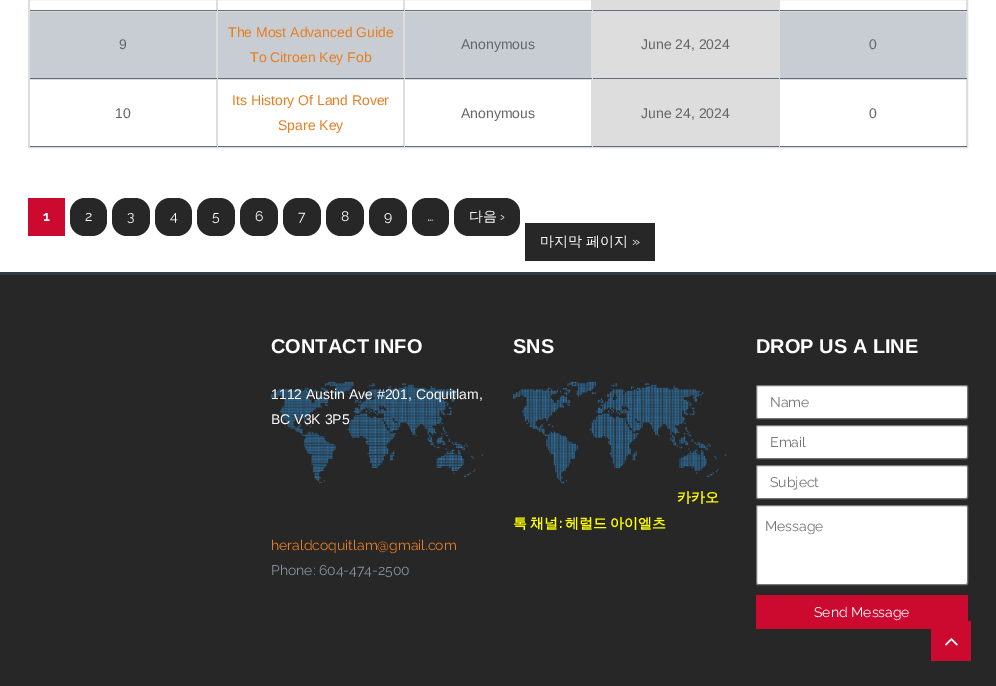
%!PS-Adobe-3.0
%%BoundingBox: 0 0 996 686
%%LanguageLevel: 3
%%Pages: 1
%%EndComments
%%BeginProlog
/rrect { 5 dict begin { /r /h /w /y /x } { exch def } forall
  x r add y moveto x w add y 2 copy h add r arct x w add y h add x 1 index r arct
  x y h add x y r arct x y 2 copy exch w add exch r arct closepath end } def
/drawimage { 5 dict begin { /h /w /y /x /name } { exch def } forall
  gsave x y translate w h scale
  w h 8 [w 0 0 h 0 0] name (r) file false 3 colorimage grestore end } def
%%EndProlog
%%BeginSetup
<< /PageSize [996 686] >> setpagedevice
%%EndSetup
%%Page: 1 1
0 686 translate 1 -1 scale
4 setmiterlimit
1 setgray
0 0 996 686 rectfill
0.867 setgray
28.5 -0.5 939 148 rectstroke
216 0 1 11 rectfill
0.384 0.431 0.494 setrgbcolor
29 10 188 1 rectfill
0.867 setgray
29 0 1 11 rectfill
403 0 1 11 rectfill
0.384 0.431 0.494 setrgbcolor
217 10 187 1 rectfill
0.867 setgray
217 0 1 11 rectfill
591 0 1 11 rectfill
0.384 0.431 0.494 setrgbcolor
404 10 375 1 rectfill
0.867 setgray
404 0 1 11 rectfill
593 0 186 10 rectfill
592 0 1 11 rectfill
966 0 1 11 rectfill
0.384 0.431 0.494 setrgbcolor
779 10 188 1 rectfill
0.867 setgray
779 0 1 11 rectfill
0.784 0.804 0.831 setrgbcolor
30 12 936 66 rectfill
0.867 setgray
29 11 563 1 rectfill
216 11 1 68 rectfill
0.384 0.431 0.494 setrgbcolor
29 78 188 1 rectfill
0.867 setgray
29 11 1 68 rectfill
403 11 1 68 rectfill
0.384 0.431 0.494 setrgbcolor
217 78 187 1 rectfill
0.867 setgray
217 11 1 68 rectfill
591 11 1 68 rectfill
0.384 0.431 0.494 setrgbcolor
404 78 375 1 rectfill
0.867 setgray
404 11 1 68 rectfill
593 11 186 67 rectfill
592 11 1 68 rectfill
779 11 188 1 rectfill
966 11 1 68 rectfill
0.384 0.431 0.494 setrgbcolor
779 78 188 1 rectfill
0.867 setgray
779 11 1 68 rectfill
29 79 563 1 rectfill
216 79 1 68 rectfill
0.384 0.431 0.494 setrgbcolor
29 146 188 1 rectfill
0.867 setgray
29 79 1 68 rectfill
403 79 1 68 rectfill
0.384 0.431 0.494 setrgbcolor
217 146 187 1 rectfill
0.867 setgray
217 79 1 68 rectfill
591 79 1 68 rectfill
0.384 0.431 0.494 setrgbcolor
404 146 375 1 rectfill
0.867 setgray
404 79 1 68 rectfill
593 79 186 67 rectfill
592 79 1 68 rectfill
779 79 188 1 rectfill
966 79 1 68 rectfill
0.384 0.431 0.494 setrgbcolor
779 146 188 1 rectfill
0.867 setgray
779 79 1 68 rectfill
0.8 0.035 0.184 setrgbcolor
28 198 37 38 rectfill
0.153 setgray
70 198 37 38 15 rrect fill
112 198 38 38 15 rrect fill
155 198 37 38 15 rrect fill
197 198 38 38 15 rrect fill
240 198 38 38 15 rrect fill
283 198 38 38 15 rrect fill
326 198 38 38 15 rrect fill
369 198 38 38 15 rrect fill
412 198 37 38 15 rrect fill
454 198 66 38 15 rrect fill
525 223 130 38 rectfill
0 275 996 411 rectfill
0.208 0.227 0.243 setrgbcolor
0 272 996 3 rectfill
(images/1.raw) 270 381 213 102 drawimage
(images/2.raw) 513 381 213 103 drawimage
1 setgray
756.5 385.5 211 33 1.5 rrect gsave fill grestore
0.463 setgray
stroke
1 setgray
756.5 425.5 211 33 1.5 rrect gsave fill grestore
0.463 setgray
stroke
1 setgray
756.5 465.5 211 33 1.5 rrect gsave fill grestore
0.463 setgray
stroke
1 setgray
756.5 505.5 211 79 1.5 rrect gsave fill grestore
0.463 setgray
stroke
0.8 0.035 0.184 setrgbcolor
756 595 212 34 rectfill
931 621 40 40 rectfill
(images/3.raw) 945 638 13 8 drawimage
/LiberationSans-Regular [14 0 0 -14 0 0] selectfont
0.4 setgray
119 49 moveto (9) show
0.902 0.494 0.133 setrgbcolor
228 37 moveto (The Most Advanced Guide) show
250 62 moveto (To Citroen Key Fob) show
0.4 setgray
461 49 moveto (Anonymous) show
641 49 moveto (June 24, 2024) show
869 49 moveto (0) show
115 118 moveto (10) show
0.902 0.494 0.133 setrgbcolor
232 105 moveto (Its History Of Land Rover) show
278 130 moveto (Spare Key) show
0.4 setgray
461 118 moveto (Anonymous) show
641 118 moveto (June 24, 2024) show
869 118 moveto (0) show
/Raleway-Bold [14 0 0 -14 0 0] selectfont
1 setgray
43 221 moveto (1) show
/Raleway-Regular [14 0 0 -14 0 0] selectfont
85 221 moveto (2) show
127 221 moveto (3) show
170 221 moveto (4) show
212 221 moveto (5) show
255 221 moveto (6) show
298 221 moveto (7) show
341 221 moveto (8) show
384 221 moveto (9) show
427 221 moveto (…) show
/WenQuanYiZenHei-Medium [14 0 0 -14 0 0] selectfont
469 221 moveto (다음) show
/Raleway-Regular [14 0 0 -14 0 0] selectfont
500 221 moveto (›) show
/WenQuanYiZenHei-Medium [14 0 0 -14 0 0] selectfont
540 246 moveto (마지막 페이지) show
/Raleway-Regular [14 0 0 -14 0 0] selectfont
632 246 moveto (») show
/LiberationSans-Bold [20 0 0 -20 0 0] selectfont
271 353 moveto (CONTACT INFO) show
/LiberationSans-Regular [14 0 0 -14 0 0] selectfont
271 399 moveto (1112 Austin Ave #201, Coquitlam,) show
271 424 moveto (BC V3K 3P5) show
/Raleway-Regular [14 0 0 -14 0 0] selectfont
0.902 0.494 0.133 setrgbcolor
271 550 moveto (heraldcoquitlam@gmail.com) show
0.514 0.576 0.612 setrgbcolor
271 575 moveto (Phone: 604-474-2500) show
/LiberationSans-Bold [20 0 0 -20 0 0] selectfont
1 setgray
513 353 moveto (SNS) show
/WenQuanYiZenHei-Bold [14 0 0 -14 0 0] selectfont
1 1 0 setrgbcolor
677 502 moveto (카카오) show
513 528 moveto -1 0 32 (톡 채널) widthshow
/Raleway-Bold [14 0 0 -14 0 0] selectfont
559 528 moveto (:) show
/WenQuanYiZenHei-Bold [14 0 0 -14 0 0] selectfont
565 528 moveto -1 0 32 (헤럴드 아이엘츠) widthshow
/LiberationSans-Bold [20 0 0 -20 0 0] selectfont
1 setgray
756 353 moveto (DROP US A LINE) show
/Raleway-Regular [14 0 0 -14 0 0] selectfont
0.459 setgray
770 407 moveto (Name) show
770 447 moveto (Email) show
770 487 moveto (Subject) show
765 531 moveto (Message) show
1 setgray
814 617 moveto (Send Message) show
showpage
%%EOF
